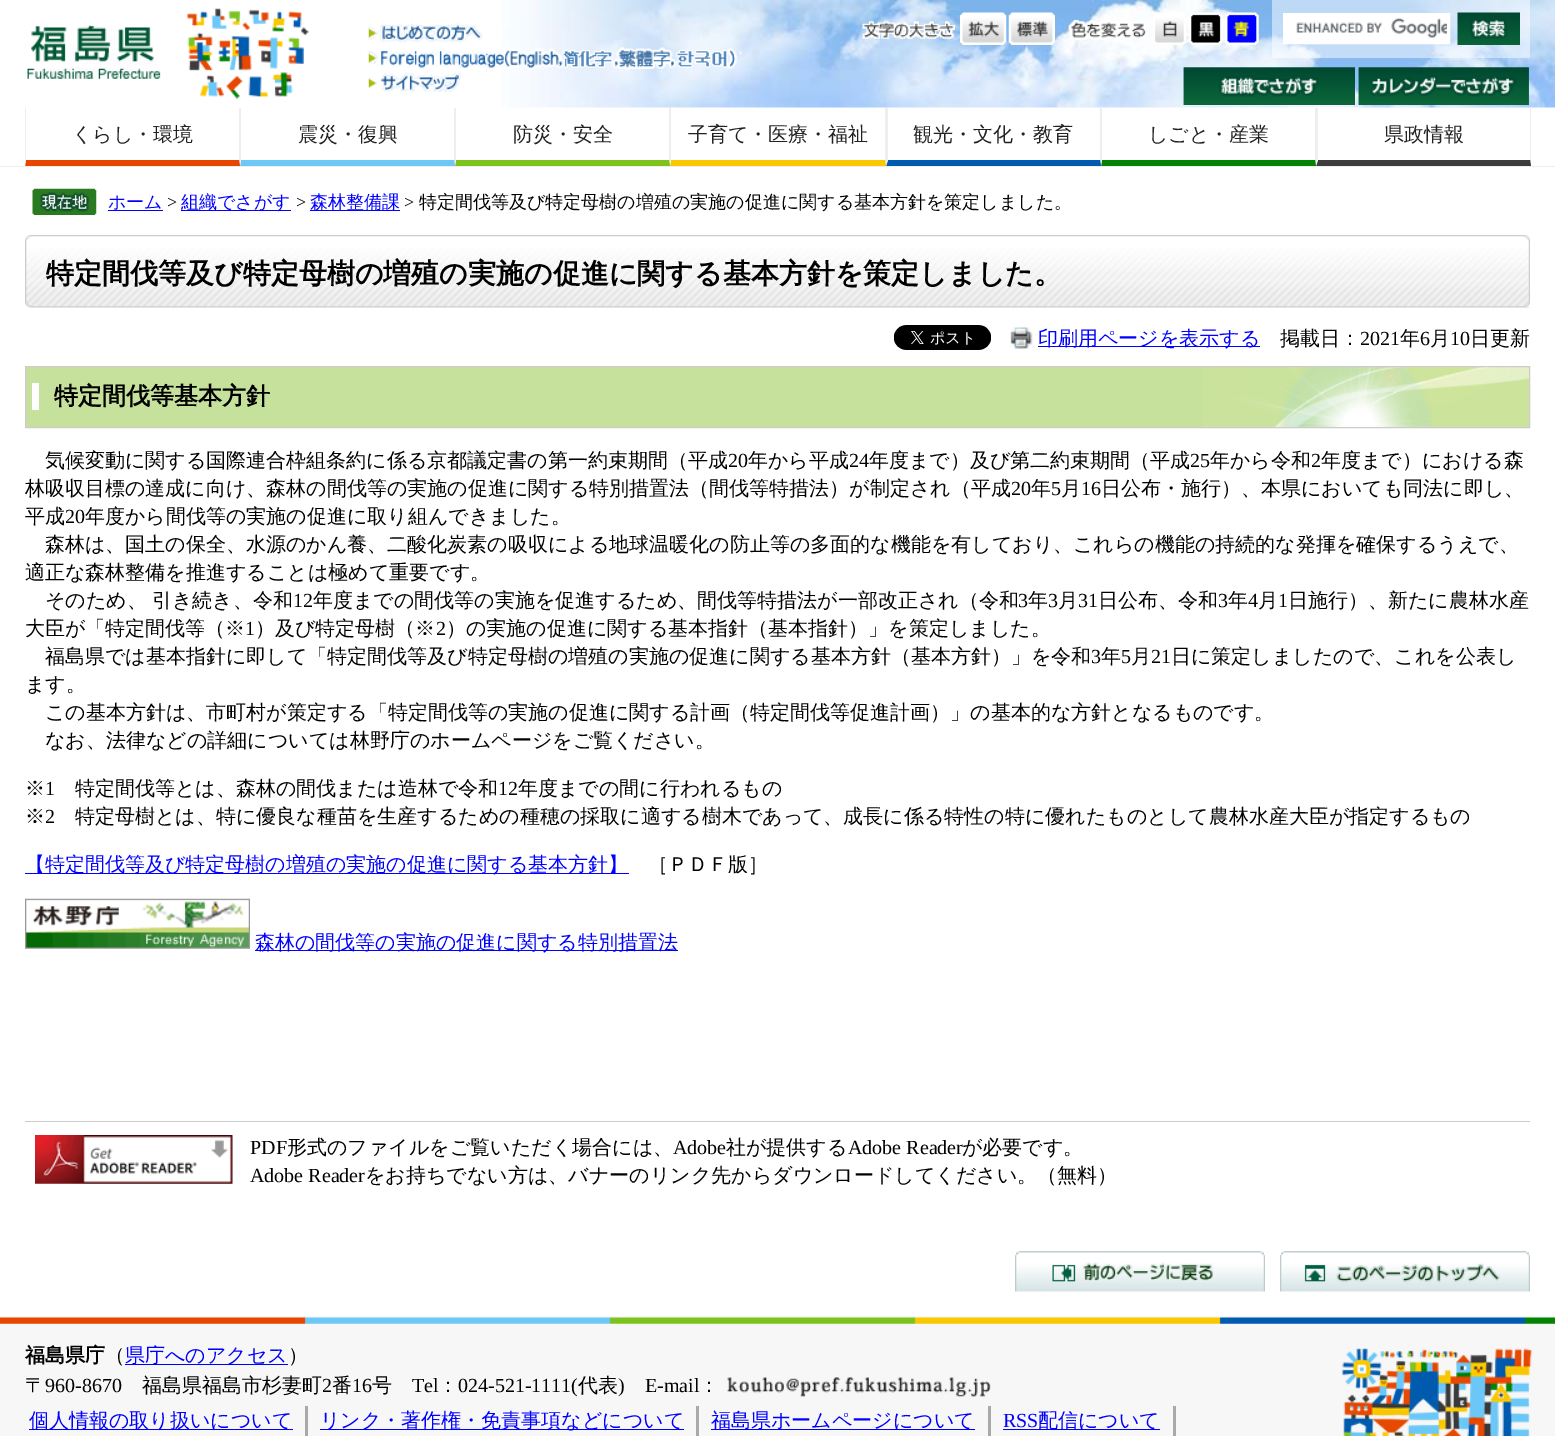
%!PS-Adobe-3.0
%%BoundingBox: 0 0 1555 1436
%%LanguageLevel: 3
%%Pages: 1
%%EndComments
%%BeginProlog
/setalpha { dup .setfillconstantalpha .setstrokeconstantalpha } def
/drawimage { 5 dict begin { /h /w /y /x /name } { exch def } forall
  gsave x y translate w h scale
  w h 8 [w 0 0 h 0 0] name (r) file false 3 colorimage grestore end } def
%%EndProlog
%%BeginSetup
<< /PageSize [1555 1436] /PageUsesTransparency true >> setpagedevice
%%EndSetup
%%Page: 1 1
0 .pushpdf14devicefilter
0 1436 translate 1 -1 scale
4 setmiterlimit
1 setgray
0 0 1555 1436 rectfill
(images/1.raw) 501 0 1054 108 drawimage
(images/2.raw) 187 8 122 91 drawimage
(images/3.raw) 27 25 134 54 drawimage
(images/4.raw) 367 23 116 20 drawimage
(images/5.raw) 368 23 113 18 drawimage
(images/6.raw) 367 47 375 23 drawimage
(images/7.raw) 368 47 374 23 drawimage
(images/8.raw) 368 72 94 20 drawimage
(images/9.raw) 368 74 91 18 drawimage
(images/10.raw) 862 21 93 18 drawimage
(images/11.raw) 960 12 47 33 drawimage
(images/12.raw) 1008 12 47 33 drawimage
(images/13.raw) 1068 19 78 21 drawimage
(images/14.raw) 1153 12 34 33 drawimage
(images/15.raw) 1188 12 35 33 drawimage
(images/16.raw) 1225 12 34 33 drawimage
0.5 setalpha
1272 0 258 58 rectfill
1 setalpha
1286 16 161 25 rectfill
(images/17.raw) 1296 18 151 20 drawimage
3 setlinewidth
1284.5 14.5 164 28 rectstroke
(images/18.raw) 1457 12 63 33 drawimage
(images/19.raw) 1183 67 172 38 drawimage
(images/20.raw) 1183 67 172 38 drawimage
(images/21.raw) 1358 67 171 38 drawimage
(images/22.raw) 1358 67 171 38 drawimage
0.933 setgray
0 166 1555 1 rectfill
newpath 240 108 moveto 240 166 lineto 239 160 lineto 239 108 lineto closepath fill
0.906 0.275 0 setrgbcolor
newpath 240 166 moveto 25 166 lineto 26 160 lineto 239 160 lineto closepath fill
0.933 setgray
newpath 25 166 moveto 25 108 lineto 26 108 lineto 26 160 lineto closepath fill
newpath 455 108 moveto 455 166 lineto 454 160 lineto 454 108 lineto closepath fill
0.427 0.784 0.961 setrgbcolor
newpath 455 166 moveto 240 166 lineto 241 160 lineto 454 160 lineto closepath fill
0.933 setgray
newpath 240 166 moveto 240 108 lineto 241 108 lineto 241 160 lineto closepath fill
newpath 670 108 moveto 670 166 lineto 669 160 lineto 669 108 lineto closepath fill
0.494 0.761 0.114 setrgbcolor
newpath 670 166 moveto 455 166 lineto 456 160 lineto 669 160 lineto closepath fill
0.933 setgray
newpath 455 166 moveto 455 108 lineto 456 108 lineto 456 160 lineto closepath fill
newpath 886 108 moveto 886 166 lineto 885 160 lineto 885 108 lineto closepath fill
0.976 0.784 0.004 setrgbcolor
newpath 886 166 moveto 670 166 lineto 671 160 lineto 885 160 lineto closepath fill
0.933 setgray
newpath 670 166 moveto 670 108 lineto 671 108 lineto 671 160 lineto closepath fill
newpath 1101 108 moveto 1101 166 lineto 1100 160 lineto 1100 108 lineto closepath fill
0 0.353 0.69 setrgbcolor
newpath 1101 166 moveto 886 166 lineto 888 160 lineto 1100 160 lineto closepath fill
0.933 setgray
newpath 886 166 moveto 886 108 lineto 888 108 lineto 888 160 lineto closepath fill
newpath 1316 108 moveto 1316 166 lineto 1315 160 lineto 1315 108 lineto closepath fill
0.016 0.51 0.016 setrgbcolor
newpath 1316 166 moveto 1101 166 lineto 1102 160 lineto 1315 160 lineto closepath fill
0.933 setgray
newpath 1101 166 moveto 1101 108 lineto 1102 108 lineto 1102 160 lineto closepath fill
newpath 1531 108 moveto 1531 166 lineto 1530 160 lineto 1530 108 lineto closepath fill
0.235 setgray
newpath 1531 166 moveto 1316 166 lineto 1318 160 lineto 1530 160 lineto closepath fill
0.933 setgray
newpath 1316 166 moveto 1316 108 lineto 1318 108 lineto 1318 160 lineto closepath fill
(images/23.raw) 32 188 65 27 drawimage
0 0 1 setrgbcolor
108 210 55 1 rectfill
181 210 110 1 rectfill
310 210 90 1 rectfill
(images/24.raw) 25 236 1505 72 drawimage
(images/25.raw) 1525 241 5 67 drawimage
(images/26.raw) 31 235 1499 6 drawimage
(images/27.raw) 25 235 6 6 drawimage
(images/28.raw) 894 325 97 25 drawimage
(images/29.raw) 1010 327 23 22 drawimage
1038 346 222 1 rectfill
0.776 0.882 0.612 setrgbcolor
26 367 1177 60 rectfill
(images/30.raw) 1203 367 326 60 drawimage
1 setgray
32 383 7 27 rectfill
0.8 setgray
1 setlinewidth
25.5 366.5 1504 61 rectstroke
0 0 1 setrgbcolor
25 873 604 1 rectfill
(images/31.raw) 25 898 225 51 drawimage
255 950 423 1 rectfill
0.8 setgray
25 1121 1505 1 rectfill
(images/32.raw) 35 1135 198 49 drawimage
(images/33.raw) 1015 1251 250 41 drawimage
(images/34.raw) 1015 1251 250 41 drawimage
(images/35.raw) 1280 1251 250 41 drawimage
(images/36.raw) 1280 1251 250 41 drawimage
0.969 setgray
0 1316 1555 120 rectfill
(images/37.raw) 0 1317 1555 7 drawimage
(images/38.raw) 1342 1348 190 88 drawimage
0 0 1 setrgbcolor
125 1364 163 1 rectfill
(images/39.raw) 727 1377 264 20 drawimage
0.663 setgray
305 1406 3 30 rectfill
0 0 1 setrgbcolor
29 1429 264 1 rectfill
0.663 setgray
696 1406 3 30 rectfill
0 0 1 setrgbcolor
320 1429 364 1 rectfill
0.663 setgray
988 1406 3 30 rectfill
0 0 1 setrgbcolor
711 1429 264 1 rectfill
0.663 setgray
1173 1406 3 30 rectfill
0 0 1 setrgbcolor
1003 1429 157 1 rectfill
/WenQuanYiZenHei-Medium [20 0 0 -20 0 0] selectfont
0.133 setgray
72 141 moveto (くらし・環境) show
298 141 moveto (震災・復興) show
513 141 moveto (防災・安全) show
688 141 moveto (子育て・医療・福祉) show
913 141 moveto (観光・文化・教育) show
1148 141 moveto (しごと・産業) show
1384 141 moveto (県政情報) show
/WenQuanYiZenHei-Medium [18 0 0 -18 0 0] selectfont
0 0 1 setrgbcolor
108 208 moveto (ホーム) show
/LiberationSerif-Regular [18 0 0 -18 0 0] selectfont
0 setgray
167 208 moveto (>) show
/WenQuanYiZenHei-Medium [18 0 0 -18 0 0] selectfont
0 0 1 setrgbcolor
181 208 moveto (組織でさがす) show
/LiberationSerif-Regular [18 0 0 -18 0 0] selectfont
0 setgray
296 208 moveto (>) show
/WenQuanYiZenHei-Medium [18 0 0 -18 0 0] selectfont
0 0 1 setrgbcolor
310 208 moveto (森林整備課) show
/LiberationSerif-Regular [18 0 0 -18 0 0] selectfont
0 setgray
404 208 moveto (>) show
/WenQuanYiZenHei-Medium [18 0 0 -18 0 0] selectfont
419 208 moveto (特定間伐等及び特定母樹の増殖の実施の促進に関する基本方針を策定しました。) show
/WenQuanYiZenHei-Bold [28 0 0 -28 0 0] selectfont
46 283 moveto (特定間伐等及び特定母樹の増殖の実施の促進に関する基本方針を策定しました。) show
/WenQuanYiZenHei-Medium [20 0 0 -20 0 0] selectfont
0 0 1 setrgbcolor
1038 345 moveto (印刷用ページを表示する) show
0 setgray
1280 345 moveto (掲載日：) show
/LiberationSerif-Regular [20 0 0 -20 0 0] selectfont
1360 345 moveto (2021) show
/WenQuanYiZenHei-Medium [20 0 0 -20 0 0] selectfont
1400 345 moveto (年) show
/LiberationSerif-Regular [20 0 0 -20 0 0] selectfont
1420 345 moveto (6) show
/WenQuanYiZenHei-Medium [20 0 0 -20 0 0] selectfont
1430 345 moveto (月) show
/LiberationSerif-Regular [20 0 0 -20 0 0] selectfont
1450 345 moveto (10) show
/WenQuanYiZenHei-Medium [20 0 0 -20 0 0] selectfont
1470 345 moveto (日更新) show
/WenQuanYiZenHei-Bold [24 0 0 -24 0 0] selectfont
54 404 moveto (特定間伐等基本方針) show
/WenQuanYiZenHei-Medium [20 0 0 -20 0 0] selectfont
45 467 moveto (気候変動に関する国際連合枠組条約に係る京都議定書の第一約束期間（平成) show
/LiberationSerif-Regular [20 0 0 -20 0 0] selectfont
728 467 moveto (20) show
/WenQuanYiZenHei-Medium [20 0 0 -20 0 0] selectfont
748 467 moveto (年から平成) show
/LiberationSerif-Regular [20 0 0 -20 0 0] selectfont
849 467 moveto (24) show
/WenQuanYiZenHei-Medium [20 0 0 -20 0 0] selectfont
869 467 moveto (年度まで）及び第二約束期間（平成) show
/LiberationSerif-Regular [20 0 0 -20 0 0] selectfont
1190 467 moveto (25) show
/WenQuanYiZenHei-Medium [20 0 0 -20 0 0] selectfont
1210 467 moveto (年から令和) show
/LiberationSerif-Regular [20 0 0 -20 0 0] selectfont
1311 467 moveto (2) show
/WenQuanYiZenHei-Medium [20 0 0 -20 0 0] selectfont
1321 467 moveto (年度まで）における森) show
25 495 moveto (林吸収目標の達成に向け、森林の間伐等の実施の促進に関する特別措置法（間伐等特措法）が制定され（平成) show
/LiberationSerif-Regular [20 0 0 -20 0 0] selectfont
1011 495 moveto (20) show
/WenQuanYiZenHei-Medium [20 0 0 -20 0 0] selectfont
1031 495 moveto (年) show
/LiberationSerif-Regular [20 0 0 -20 0 0] selectfont
1051 495 moveto (5) show
/WenQuanYiZenHei-Medium [20 0 0 -20 0 0] selectfont
1061 495 moveto (月) show
/LiberationSerif-Regular [20 0 0 -20 0 0] selectfont
1081 495 moveto (16) show
/WenQuanYiZenHei-Medium [20 0 0 -20 0 0] selectfont
1101 495 moveto (日公布・施行）、本県においても同法に即し、) show
25 523 moveto (平成) show
/LiberationSerif-Regular [20 0 0 -20 0 0] selectfont
65 523 moveto (20) show
/WenQuanYiZenHei-Medium [20 0 0 -20 0 0] selectfont
85 523 moveto (年度から間伐等の実施の促進に取り組んできました。) show
45 551 moveto (森林は、国土の保全、水源のかん養、二酸化炭素の吸収による地球温暖化の防止等の多面的な機能を有しており、これらの機能の持続的な発揮を確保するうえで、) show
25 579 moveto (適正な森林整備を推進することは極めて重要です。) show
45 607 moveto -1 0 32 (そのため、 引き続き、令和) widthshow
/LiberationSerif-Regular [20 0 0 -20 0 0] selectfont
293 607 moveto (12) show
/WenQuanYiZenHei-Medium [20 0 0 -20 0 0] selectfont
313 607 moveto (年度までの間伐等の実施を促進するため、間伐等特措法が一部改正され（令和) show
/LiberationSerif-Regular [20 0 0 -20 0 0] selectfont
1018 607 moveto (3) show
/WenQuanYiZenHei-Medium [20 0 0 -20 0 0] selectfont
1028 607 moveto (年) show
/LiberationSerif-Regular [20 0 0 -20 0 0] selectfont
1048 607 moveto (3) show
/WenQuanYiZenHei-Medium [20 0 0 -20 0 0] selectfont
1058 607 moveto (月) show
/LiberationSerif-Regular [20 0 0 -20 0 0] selectfont
1078 607 moveto (31) show
/WenQuanYiZenHei-Medium [20 0 0 -20 0 0] selectfont
1098 607 moveto (日公布、令和) show
/LiberationSerif-Regular [20 0 0 -20 0 0] selectfont
1218 607 moveto (3) show
/WenQuanYiZenHei-Medium [20 0 0 -20 0 0] selectfont
1228 607 moveto (年) show
/LiberationSerif-Regular [20 0 0 -20 0 0] selectfont
1248 607 moveto (4) show
/WenQuanYiZenHei-Medium [20 0 0 -20 0 0] selectfont
1258 607 moveto (月) show
/LiberationSerif-Regular [20 0 0 -20 0 0] selectfont
1278 607 moveto (1) show
/WenQuanYiZenHei-Medium [20 0 0 -20 0 0] selectfont
1288 607 moveto (日施行）、新たに農林水産) show
25 635 moveto (大臣が「特定間伐等（※) show
/LiberationSerif-Regular [20 0 0 -20 0 0] selectfont
245 635 moveto (1) show
/WenQuanYiZenHei-Medium [20 0 0 -20 0 0] selectfont
255 635 moveto (）及び特定母樹（※) show
/LiberationSerif-Regular [20 0 0 -20 0 0] selectfont
436 635 moveto (2) show
/WenQuanYiZenHei-Medium [20 0 0 -20 0 0] selectfont
446 635 moveto (）の実施の促進に関する基本指針（基本指針）」を策定しました。) show
45 663 moveto (福島県では基本指針に即して「特定間伐等及び特定母樹の増殖の実施の促進に関する基本方針（基本方針）」を令和) show
/LiberationSerif-Regular [20 0 0 -20 0 0] selectfont
1091 663 moveto (3) show
/WenQuanYiZenHei-Medium [20 0 0 -20 0 0] selectfont
1101 663 moveto (年) show
/LiberationSerif-Regular [20 0 0 -20 0 0] selectfont
1121 663 moveto (5) show
/WenQuanYiZenHei-Medium [20 0 0 -20 0 0] selectfont
1131 663 moveto (月) show
/LiberationSerif-Regular [20 0 0 -20 0 0] selectfont
1151 663 moveto (21) show
/WenQuanYiZenHei-Medium [20 0 0 -20 0 0] selectfont
1171 663 moveto (日に策定しましたので、これを公表し) show
25 691 moveto (ます。) show
45 719 moveto (この基本方針は、市町村が策定する「特定間伐等の実施の促進に関する計画（特定間伐等促進計画）」の基本的な方針となるものです。) show
45 747 moveto (なお、法律などの詳細については林野庁のホームページをご覧ください。) show
25 795 moveto (※) show
/LiberationSerif-Regular [20 0 0 -20 0 0] selectfont
45 795 moveto (1) show
/WenQuanYiZenHei-Medium [20 0 0 -20 0 0] selectfont
75 795 moveto (特定間伐等とは、森林の間伐または造林で令和) show
/LiberationSerif-Regular [20 0 0 -20 0 0] selectfont
498 795 moveto (12) show
/WenQuanYiZenHei-Medium [20 0 0 -20 0 0] selectfont
518 795 moveto (年度までの間に行われるもの) show
25 823 moveto (※) show
/LiberationSerif-Regular [20 0 0 -20 0 0] selectfont
45 823 moveto (2) show
/WenQuanYiZenHei-Medium [20 0 0 -20 0 0] selectfont
75 823 moveto (特定母樹とは、特に優良な種苗を生産するための種穂の採取に適する樹木であって、成長に係る特性の特に優れたものとして農林水産大臣が指定するもの) show
0 0 1 setrgbcolor
25 871 moveto (【特定間伐等及び特定母樹の増殖の実施の促進に関する基本方針】) show
0 setgray
648 871 moveto (［ＰＤＦ版］) show
0 0 1 setrgbcolor
255 949 moveto (森林の間伐等の実施の促進に関する特別措置法) show
/LiberationSerif-Regular [20 0 0 -20 0 0] selectfont
0 setgray
250 1154 moveto (PDF) show
/WenQuanYiZenHei-Medium [20 0 0 -20 0 0] selectfont
287 1154 moveto (形式のファイルをご覧いただく場合には、) show
/LiberationSerif-Regular [20 0 0 -20 0 0] selectfont
673 1154 moveto (Adobe) show
/WenQuanYiZenHei-Medium [20 0 0 -20 0 0] selectfont
726 1154 moveto (社が提供する) show
/LiberationSerif-Regular [20 0 0 -20 0 0] selectfont
848 1154 moveto (Adobe Reader) show
/WenQuanYiZenHei-Medium [20 0 0 -20 0 0] selectfont
962 1154 moveto (が必要です。) show
/LiberationSerif-Regular [20 0 0 -20 0 0] selectfont
250 1182 moveto (Adobe Reader) show
/WenQuanYiZenHei-Medium [20 0 0 -20 0 0] selectfont
365 1182 moveto (をお持ちでない方は、バナーのリンク先からダウンロードしてください。（無料）) show
/WenQuanYiZenHei-Bold [20 0 0 -20 0 0] selectfont
25 1362 moveto (福島県庁) show
/WenQuanYiZenHei-Medium [20 0 0 -20 0 0] selectfont
105 1362 moveto (（) show
0 0 1 setrgbcolor
125 1362 moveto (県庁へのアクセス) show
0 setgray
288 1362 moveto (）) show
25 1392 moveto (〒) show
/LiberationSerif-Regular [20 0 0 -20 0 0] selectfont
45 1392 moveto (960-8670) show
/WenQuanYiZenHei-Medium [20 0 0 -20 0 0] selectfont
142 1392 moveto (福島県福島市杉妻町) show
/LiberationSerif-Regular [20 0 0 -20 0 0] selectfont
322 1392 moveto (2) show
/WenQuanYiZenHei-Medium [20 0 0 -20 0 0] selectfont
332 1392 moveto (番) show
/LiberationSerif-Regular [20 0 0 -20 0 0] selectfont
352 1392 moveto (16) show
/WenQuanYiZenHei-Medium [20 0 0 -20 0 0] selectfont
372 1392 moveto (号) show
/LiberationSerif-Regular [20 0 0 -20 0 0] selectfont
412 1392 moveto (Tel) show
/WenQuanYiZenHei-Medium [20 0 0 -20 0 0] selectfont
438 1392 moveto (：) show
/LiberationSerif-Regular [20 0 0 -20 0 0] selectfont
458 1392 moveto (024-521-1111\() show
/WenQuanYiZenHei-Medium [20 0 0 -20 0 0] selectfont
578 1392 moveto (代表) show
/LiberationSerif-Regular [20 0 0 -20 0 0] selectfont
618 1392 moveto (\)) show
645 1392 moveto (E-mail) show
/WenQuanYiZenHei-Medium [20 0 0 -20 0 0] selectfont
699 1392 moveto (：) show
0 0 1 setrgbcolor
29 1427 moveto (個人情報の取り扱いについて) show
320 1427 moveto (リンク・著作権・免責事項などについて) show
711 1427 moveto (福島県ホームページについて) show
/LiberationSerif-Regular [20 0 0 -20 0 0] selectfont
1003 1427 moveto (RSS) show
/WenQuanYiZenHei-Medium [20 0 0 -20 0 0] selectfont
1038 1427 moveto (配信について) show
.poppdf14devicefilter showpage
%%EOF
